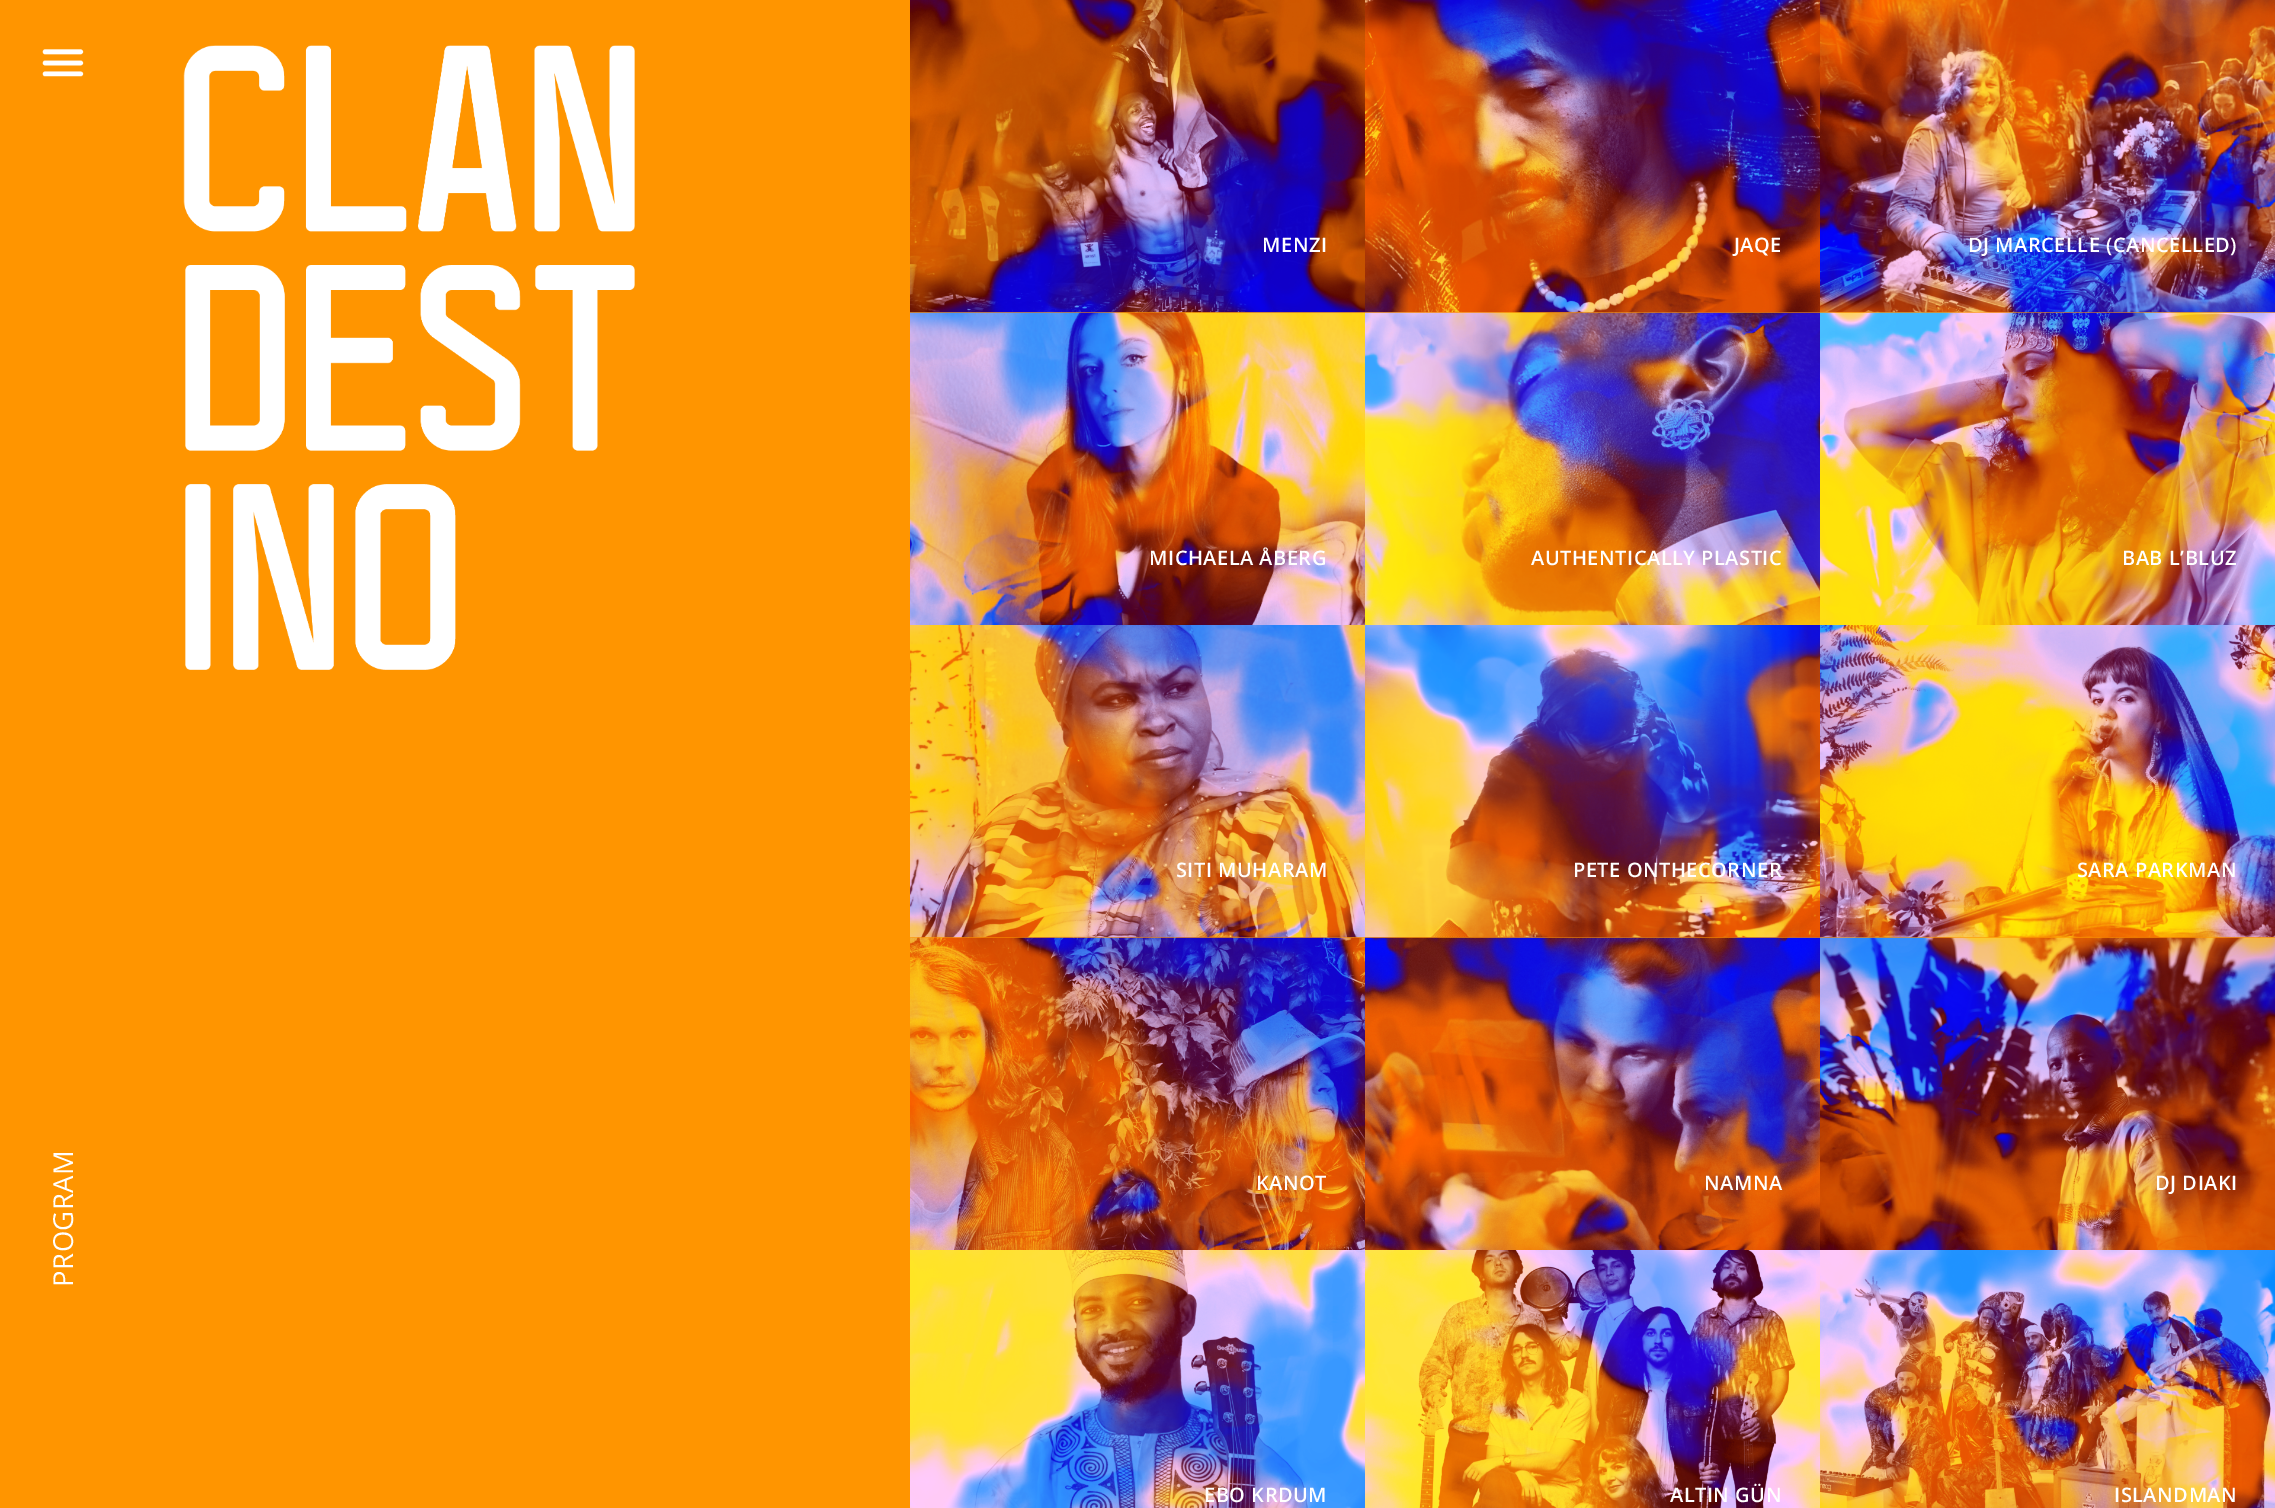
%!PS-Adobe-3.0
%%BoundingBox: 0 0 2275 1508
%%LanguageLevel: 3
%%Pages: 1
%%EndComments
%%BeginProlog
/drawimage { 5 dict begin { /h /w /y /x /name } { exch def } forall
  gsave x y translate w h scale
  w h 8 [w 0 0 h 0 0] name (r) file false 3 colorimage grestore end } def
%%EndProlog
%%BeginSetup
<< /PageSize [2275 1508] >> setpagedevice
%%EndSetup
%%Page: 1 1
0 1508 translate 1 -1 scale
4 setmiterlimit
1 0.584 0 setrgbcolor
0 0 2275 1508 rectfill
(images/1.raw) 42 49 42 28 drawimage
(images/2.raw) 183 45 452 625 drawimage
(images/3.raw) 910 0 455 313 drawimage
(images/4.raw) 1365 0 455 313 drawimage
(images/5.raw) 1820 0 455 313 drawimage
(images/6.raw) 910 312 455 313 drawimage
(images/7.raw) 1365 312 455 313 drawimage
(images/8.raw) 1820 312 455 313 drawimage
(images/9.raw) 910 625 455 313 drawimage
(images/10.raw) 1365 625 455 313 drawimage
(images/11.raw) 1820 625 455 313 drawimage
(images/12.raw) 910 937 455 313 drawimage
(images/13.raw) 1365 937 455 313 drawimage
(images/14.raw) 1820 937 455 313 drawimage
(images/15.raw) 910 1250 455 258 drawimage
(images/16.raw) 1365 1250 455 258 drawimage
(images/17.raw) 1820 1250 455 258 drawimage
/OpenSans-Regular [27.5 0 0 -27.5 0 0] selectfont
1 setgray
gsave 73 1287 translate -90 rotate 0 0 moveto 0.5 0 (PROGRAM) ashow grestore
/OpenSans-SemiBold [20 0 0 -20 0 0] selectfont
1262 252 moveto 0.5 0 (MENZI) ashow
1734 252 moveto 0.5 0 (JAQE) ashow
1968 252 moveto 0.5 0 (DJ MARCELLE \(CANCELLED\)) ashow
1149 565 moveto 0.5 0 (MICHAELA ÅBERG) ashow
1531 565 moveto 0.5 0 (AUTHENTICALLY PLASTIC) ashow
2122 565 moveto 0.5 0 (BAB L’BLUZ) ashow
1176 877 moveto 0.5 0 (SITI MUHARAM) ashow
1573 877 moveto 0.5 0 (PETE ONTHECORNER) ashow
2077 877 moveto 0.5 0 (SARA PARKMAN) ashow
1256 1190 moveto 0.5 0 (KANOT) ashow
1704 1190 moveto 0.5 0 (NAMNA) ashow
2155 1190 moveto 0.5 0 (DJ DIAKI) ashow
1204 1502 moveto 0.5 0 (EBO KRDUM) ashow
1670 1502 moveto 0.5 0 (ALTIN GÜN) ashow
2114 1502 moveto 0.5 0 (ISLANDMAN) ashow
showpage
%%EOF
